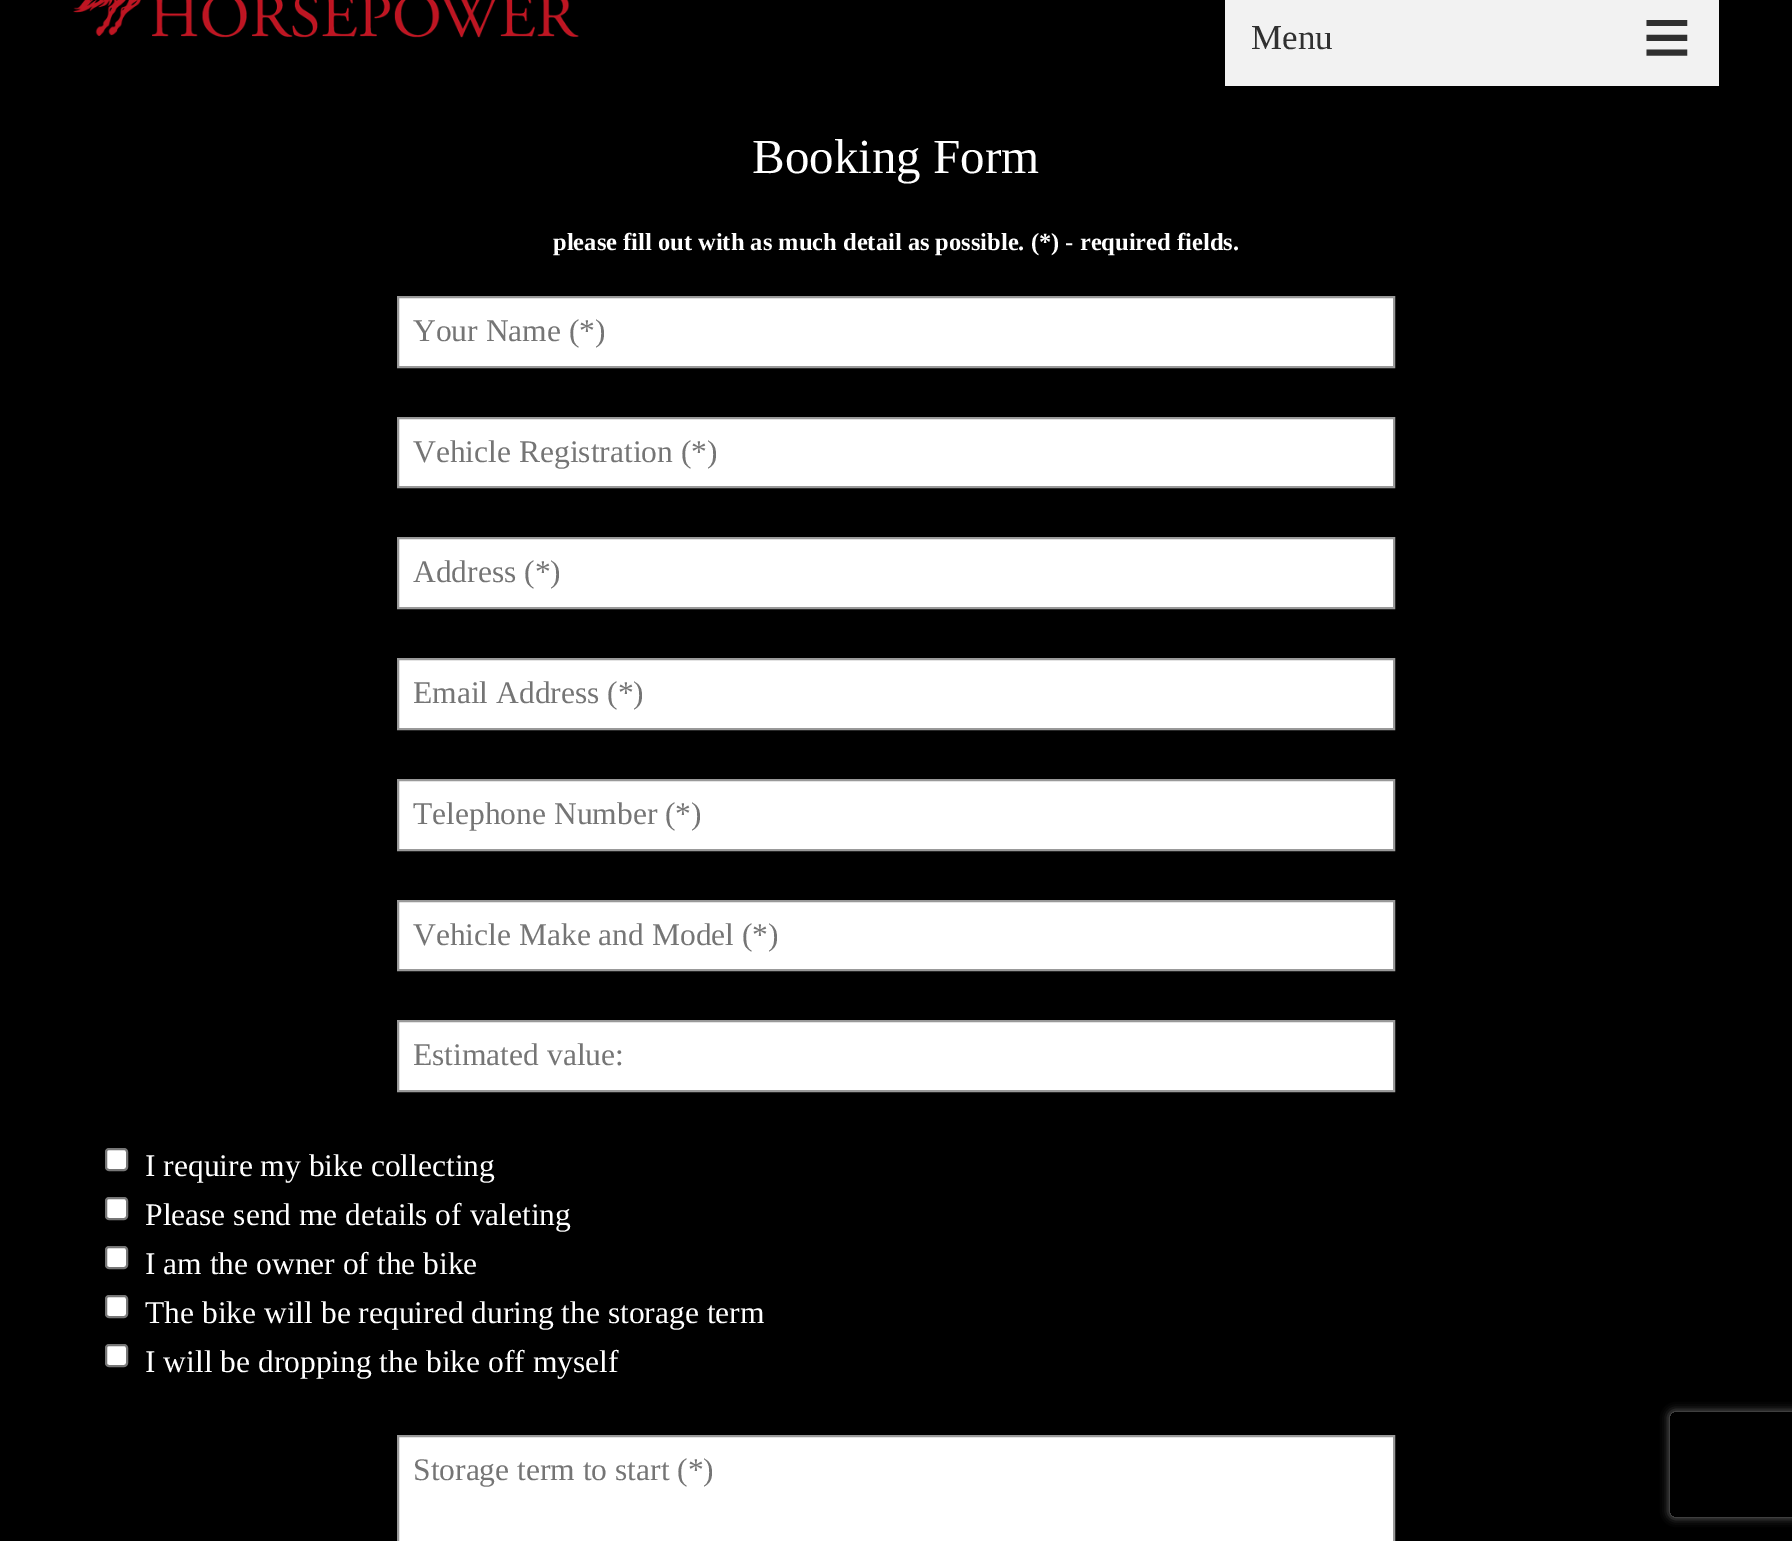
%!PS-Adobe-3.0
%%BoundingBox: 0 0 1792 1541
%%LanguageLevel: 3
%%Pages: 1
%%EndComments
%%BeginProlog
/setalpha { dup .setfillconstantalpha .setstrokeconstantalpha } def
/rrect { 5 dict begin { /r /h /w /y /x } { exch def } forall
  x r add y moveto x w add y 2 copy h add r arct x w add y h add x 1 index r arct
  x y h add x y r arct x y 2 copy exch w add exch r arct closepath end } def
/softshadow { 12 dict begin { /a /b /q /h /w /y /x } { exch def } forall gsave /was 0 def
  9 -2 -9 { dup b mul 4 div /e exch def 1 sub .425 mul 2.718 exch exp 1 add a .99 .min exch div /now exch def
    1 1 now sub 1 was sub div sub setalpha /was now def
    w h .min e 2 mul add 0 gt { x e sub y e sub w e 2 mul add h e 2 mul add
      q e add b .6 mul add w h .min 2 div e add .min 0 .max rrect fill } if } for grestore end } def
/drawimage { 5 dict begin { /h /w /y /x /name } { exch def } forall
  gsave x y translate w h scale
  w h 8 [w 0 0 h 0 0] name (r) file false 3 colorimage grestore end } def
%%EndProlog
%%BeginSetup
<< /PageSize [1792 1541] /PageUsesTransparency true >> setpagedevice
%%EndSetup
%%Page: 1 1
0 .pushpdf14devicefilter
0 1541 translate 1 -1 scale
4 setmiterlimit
0 setgray
0 0 1792 1541 rectfill
(images/1.raw) 73 0 506 38 drawimage
0.949 setgray
1225 0 494 86 rectfill
1 setgray
newpath 398 297 moveto 1394 297 lineto 1394 367 lineto 398 367 lineto closepath gsave fill grestore
0.6 setgray
2 setlinewidth
stroke
1 setgray
newpath 398 418 moveto 1394 418 lineto 1394 487 lineto 398 487 lineto closepath gsave fill grestore
0.6 setgray
stroke
1 setgray
newpath 398 538 moveto 1394 538 lineto 1394 608 lineto 398 608 lineto closepath gsave fill grestore
0.6 setgray
stroke
1 setgray
newpath 398 659 moveto 1394 659 lineto 1394 729 lineto 398 729 lineto closepath gsave fill grestore
0.6 setgray
stroke
1 setgray
newpath 398 780 moveto 1394 780 lineto 1394 850 lineto 398 850 lineto closepath gsave fill grestore
0.6 setgray
stroke
1 setgray
newpath 398 901 moveto 1394 901 lineto 1394 970 lineto 398 970 lineto closepath gsave fill grestore
0.6 setgray
stroke
1 setgray
newpath 398 1021 moveto 1394 1021 lineto 1394 1091 lineto 398 1091 lineto closepath gsave fill grestore
0.6 setgray
stroke
1 setgray
106 1149 21 21 3 rrect gsave fill grestore
0.463 setgray
stroke
1 setgray
106 1198 21 21 3 rrect gsave fill grestore
0.463 setgray
stroke
1 setgray
106 1247 21 21 3 rrect gsave fill grestore
0.463 setgray
stroke
1 setgray
106 1296 21 21 3 rrect gsave fill grestore
0.463 setgray
stroke
1 setgray
106 1345 21 21 3 rrect gsave fill grestore
0.463 setgray
stroke
1 setgray
newpath 398 1436 moveto 1394 1436 lineto 1394 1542 lineto 398 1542 lineto closepath gsave fill grestore
0.6 setgray
stroke
gsave
newpath 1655 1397 moveto 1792 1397 lineto 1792 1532 lineto 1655 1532 lineto closepath 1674 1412 moveto 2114 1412 lineto 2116 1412 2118 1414 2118 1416 curveto 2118 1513 lineto 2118 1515 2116 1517 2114 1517 curveto 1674 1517 lineto 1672 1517 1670 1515 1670 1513 curveto 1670 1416 lineto 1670 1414 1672 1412 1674 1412 curveto closepath eoclip newpath
0.502 setgray
1670 1412 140 105 4 4.5 1 softshadow
grestore
/LiberationSerif-Regular [35 0 0 -35 0 0] selectfont
0.188 setgray
1251 49 moveto (Menu) show
/LiberationSerif-Bold [88 0 0 -88 0 0] selectfont
1642 67 moveto (≡) show
/LiberationSerif-Regular [49 0 0 -49 0 0] selectfont
1 setgray
752 173 moveto (Booking Form) show
/LiberationSerif-Bold [24.5 0 0 -24.5 0 0] selectfont
553 250 moveto (please fill out with as much detail as possible. \(*\) - required fields.) show
/LiberationSerif-Regular [31.5 0 0 -31.5 0 0] selectfont
0.459 setgray
413 341 moveto (Your Name \(*\)) show
413 462 moveto (Vehicle Registration \(*\)) show
413 582 moveto (Address \(*\)) show
413 703 moveto (Email Address \(*\)) show
413 824 moveto (Telephone Number \(*\)) show
413 945 moveto (Vehicle Make and Model \(*\)) show
413 1065 moveto (Estimated value:) show
1 setgray
145 1176 moveto (I require my bike collecting) show
145 1225 moveto (Please send me details of valeting) show
145 1274 moveto (I am the owner of the bike) show
145 1323 moveto (The bike will be required during the storage term) show
145 1372 moveto (I will be dropping the bike off myself) show
0.459 setgray
413 1480 moveto (Storage term to start \(*\)) show
.poppdf14devicefilter showpage
%%EOF
